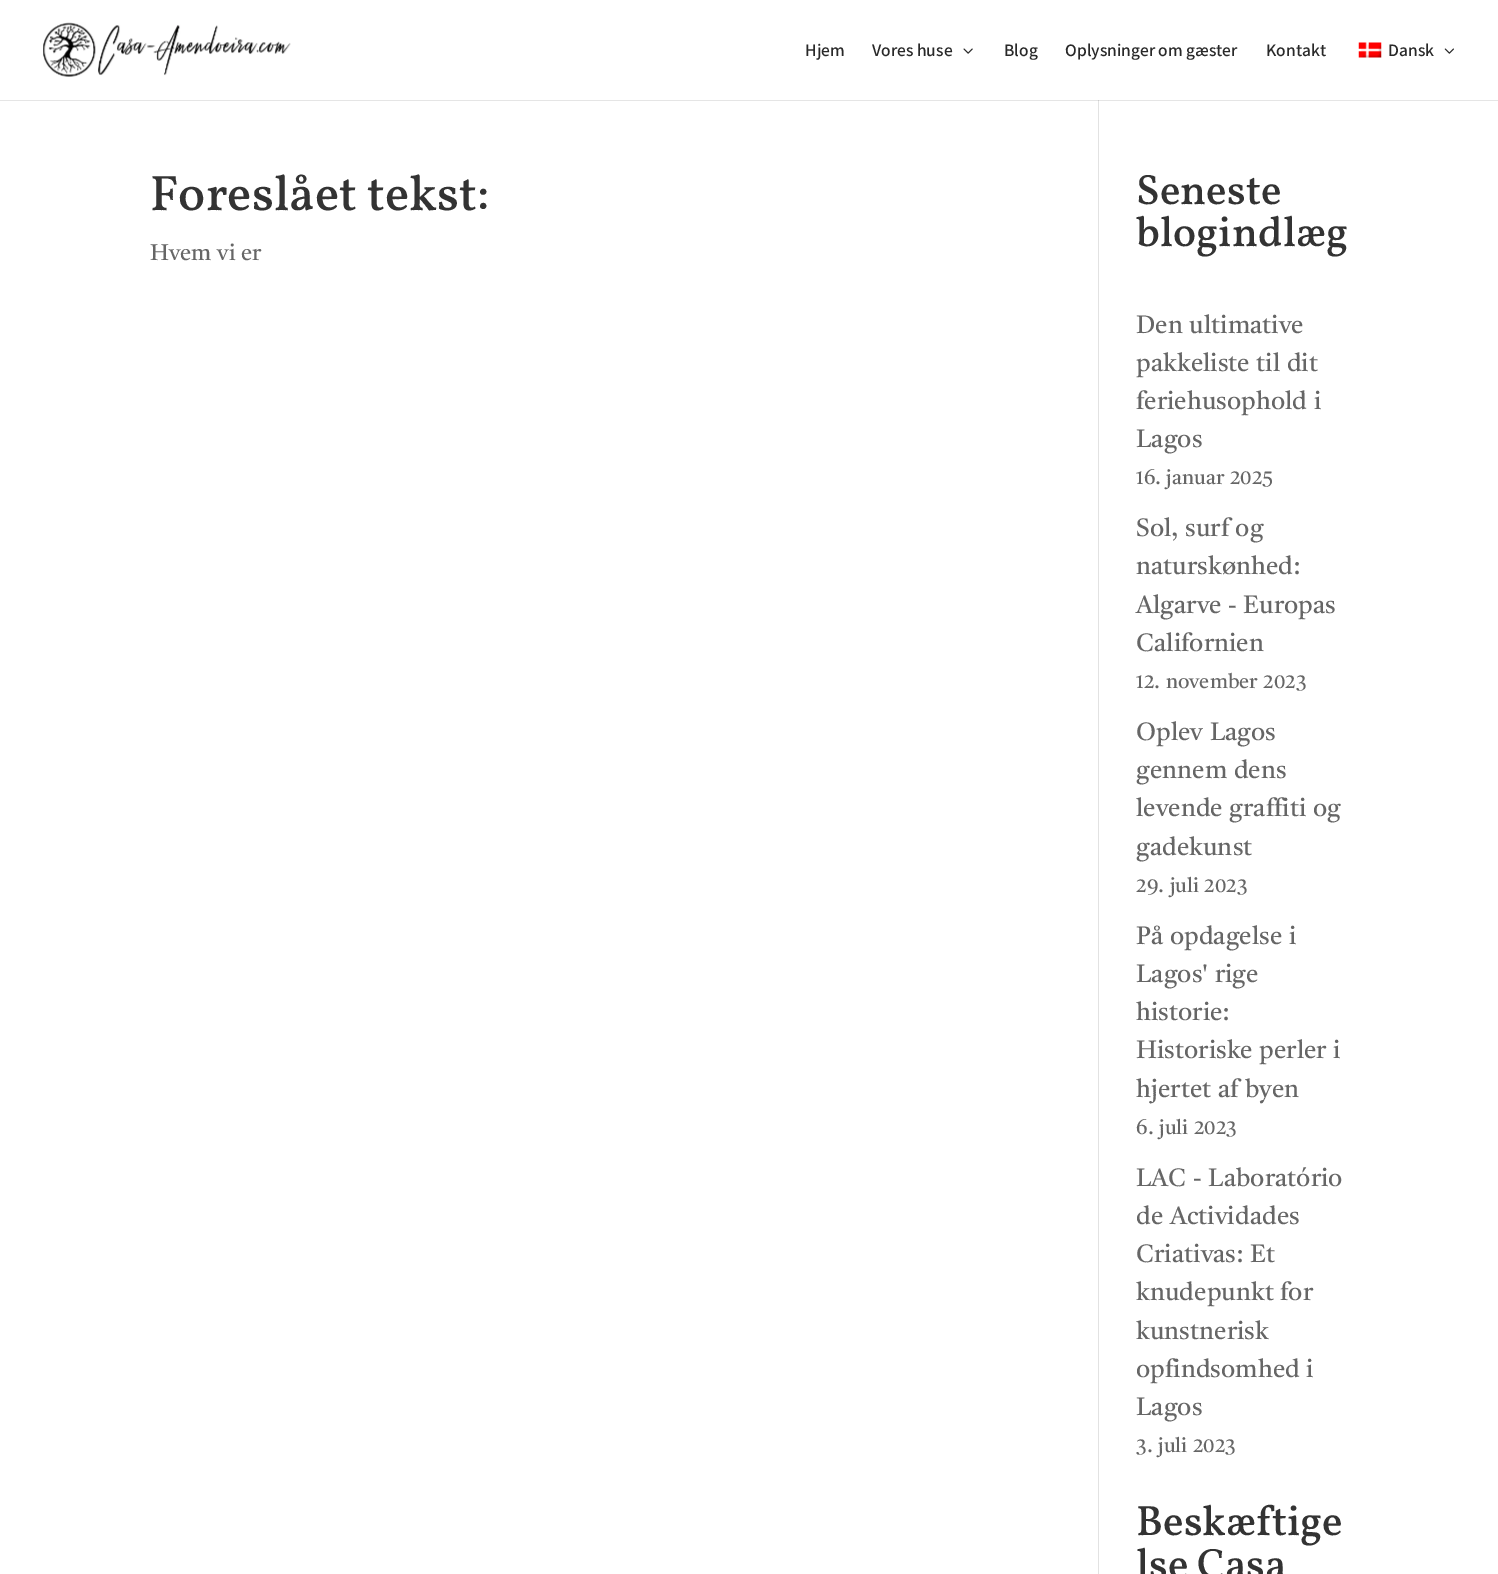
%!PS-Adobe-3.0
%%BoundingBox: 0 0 1498 1574
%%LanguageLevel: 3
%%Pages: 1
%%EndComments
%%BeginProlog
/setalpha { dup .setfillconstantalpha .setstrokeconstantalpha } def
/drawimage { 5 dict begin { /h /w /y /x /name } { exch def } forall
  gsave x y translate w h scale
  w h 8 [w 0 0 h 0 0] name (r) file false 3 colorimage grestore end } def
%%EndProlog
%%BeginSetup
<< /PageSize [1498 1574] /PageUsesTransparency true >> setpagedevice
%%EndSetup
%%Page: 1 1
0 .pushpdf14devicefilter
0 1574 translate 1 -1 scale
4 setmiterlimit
1 setgray
0 0 1498 1574 rectfill
0.886 setgray
1098 100 1 1474 rectfill
0.1 setalpha
0 setgray
newpath 0 100 moveto 0 101 lineto 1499 101 lineto 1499 1 lineto 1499 100 lineto closepath fill
1 setalpha
(images/1.raw) 43 22 248 55 drawimage
(images/2.raw) 963 48 10 6 drawimage
(images/3.raw) 1358 42 24 16 drawimage
(images/4.raw) 1444 48 10 6 drawimage
/Assistant-SemiBold [17.5 0 0 -17.5 0 0] selectfont
0.161 setgray
805 56 moveto (Hjem) show
872 56 moveto (Vores huse) show
1004 56 moveto (Blog) show
1065 56 moveto (Oplysninger om gæster) show
1266 56 moveto (Kontakt) show
1388 56 moveto (Dansk) show
/Vollkorn-Medium [50 0 0 -50 0 0] selectfont
0.2 setgray
150 210 moveto (Foreslået tekst:) show
/TiroGurmukhi-Regular [22.5 0 0 -22.5 0 0] selectfont
0.4 setgray
150 260 moveto (Hvem vi er) show
/Vollkorn-Medium [42.5 0 0 -42.5 0 0] selectfont
0.2 setgray
1136 204 moveto (Seneste) show
1136 246 moveto (blogindlæg) show
/TiroGurmukhi-Regular [25 0 0 -25 0 0] selectfont
0.4 setgray
1136 333 moveto (Den ultimative) show
1136 371 moveto (pakkeliste til dit) show
1136 409 moveto (feriehusophold i) show
1136 447 moveto (Lagos) show
/TiroGurmukhi-Regular [20.25 0 0 -20.25 0 0] selectfont
1136 484 moveto (16. januar 2025) show
/TiroGurmukhi-Regular [25 0 0 -25 0 0] selectfont
1136 536 moveto (Sol, surf og) show
1136 574 moveto (naturskønhed:) show
1136 613 moveto (Algarve - Europas) show
1136 651 moveto (Californien) show
/TiroGurmukhi-Regular [20.25 0 0 -20.25 0 0] selectfont
1136 688 moveto (12. november 2023) show
/TiroGurmukhi-Regular [25 0 0 -25 0 0] selectfont
1136 740 moveto (Oplev Lagos) show
1136 778 moveto (gennem dens) show
1136 816 moveto (levende graffiti og) show
1136 855 moveto (gadekunst) show
/TiroGurmukhi-Regular [20.25 0 0 -20.25 0 0] selectfont
1136 892 moveto (29. juli 2023) show
/TiroGurmukhi-Regular [25 0 0 -25 0 0] selectfont
1136 944 moveto (På opdagelse i) show
1136 982 moveto (Lagos' rige) show
1136 1020 moveto (historie:) show
1136 1058 moveto (Historiske perler i) show
1136 1097 moveto (hjertet af byen) show
/TiroGurmukhi-Regular [20.25 0 0 -20.25 0 0] selectfont
1136 1134 moveto (6. juli 2023) show
/TiroGurmukhi-Regular [25 0 0 -25 0 0] selectfont
1136 1186 moveto (LAC - Laboratório) show
1136 1224 moveto (de Actividades) show
1136 1262 moveto (Criativas: Et) show
1136 1300 moveto (knudepunkt for) show
1136 1339 moveto (kunstnerisk) show
1136 1377 moveto (opfindsomhed i) show
1136 1415 moveto (Lagos) show
/TiroGurmukhi-Regular [20.25 0 0 -20.25 0 0] selectfont
1136 1452 moveto (3. juli 2023) show
/Vollkorn-Medium [42.5 0 0 -42.5 0 0] selectfont
0.2 setgray
1136 1535 moveto (Beskæftige) show
1136 1578 moveto (lse Casa) show
.poppdf14devicefilter showpage
%%EOF
